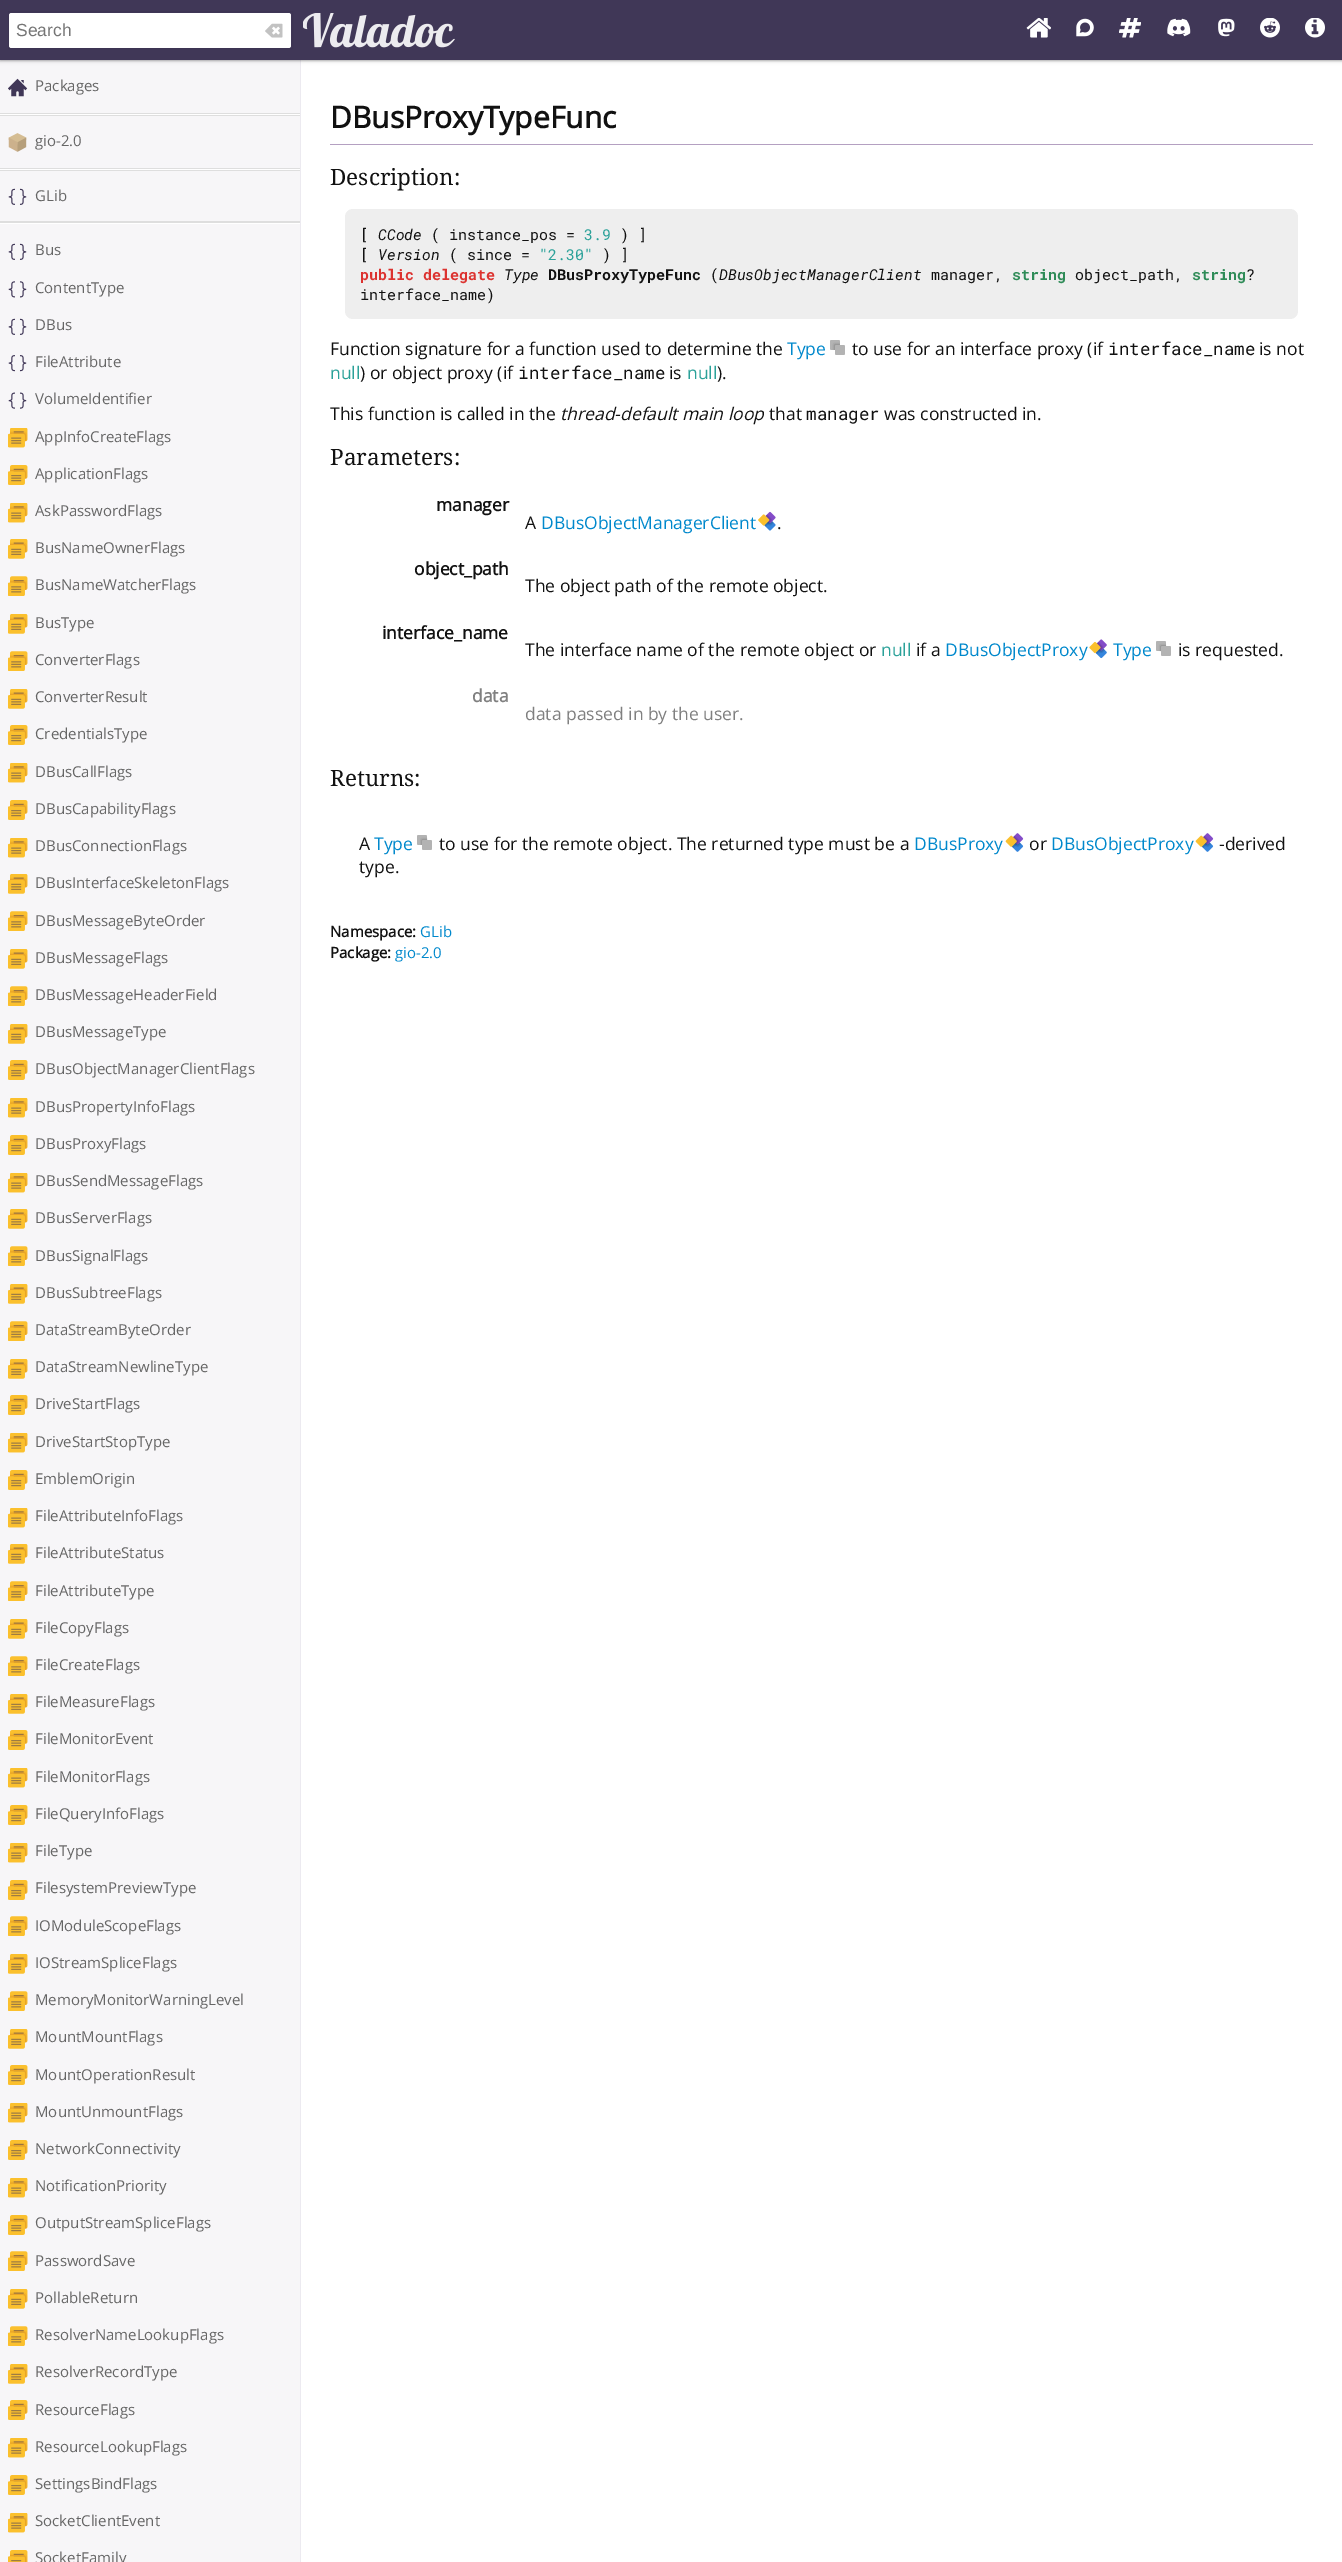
%!PS-Adobe-3.0
%%BoundingBox: 0 0 1342 2562
%%LanguageLevel: 3
%%Pages: 1
%%EndComments
%%BeginProlog
/setalpha { dup .setfillconstantalpha .setstrokeconstantalpha } def
/rrect { 5 dict begin { /r /h /w /y /x } { exch def } forall
  x r add y moveto x w add y 2 copy h add r arct x w add y h add x 1 index r arct
  x y h add x y r arct x y 2 copy exch w add exch r arct closepath end } def
/softshadow { 12 dict begin { /a /b /q /h /w /y /x } { exch def } forall gsave /was 0 def
  9 -2 -9 { dup b mul 4 div /e exch def 1 sub .425 mul 2.718 exch exp 1 add a .99 .min exch div /now exch def
    1 1 now sub 1 was sub div sub setalpha /was now def
    w h .min e 2 mul add 0 gt { x e sub y e sub w e 2 mul add h e 2 mul add
      q e add b .6 mul add w h .min 2 div e add .min 0 .max rrect fill } if } for grestore end } def
/drawimage { 5 dict begin { /h /w /y /x /name } { exch def } forall
  gsave x y translate w h scale
  w h 8 [w 0 0 h 0 0] name (r) file false 3 colorimage grestore end } def
%%EndProlog
%%BeginSetup
<< /PageSize [1342 2562] /PageUsesTransparency true >> setpagedevice
%%EndSetup
%%Page: 1 1
0 .pushpdf14devicefilter
0 2562 translate 1 -1 scale
4 setmiterlimit
1 setgray
0 0 1342 2562 rectfill
0.969 0.965 0.973 setrgbcolor
0 60 300 2502 rectfill
0.925 0.918 0.941 setrgbcolor
300 60 1 2502 rectfill
0 setgray
0 1 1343 60 0 1 0.24 softshadow
0 1 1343 60 0 2 0.12 softshadow
0.251 0.216 0.341 setrgbcolor
0 0 1342 60 rectfill
1 setgray
9 13 282 35 2.5 rrect fill
0.05 setalpha
0 setgray
8.5 11.5 284 37 rectstroke
1 setalpha
(images/1.raw) 265 23 18 15 drawimage
(images/2.raw) 303 13 152 35 drawimage
(images/3.raw) 1026 18 25 20 drawimage
(images/4.raw) 1076 18 18 19 drawimage
(images/5.raw) 1119 18 22 20 drawimage
(images/6.raw) 1167 18 24 19 drawimage
(images/7.raw) 1218 18 17 19 drawimage
(images/8.raw) 1260 18 20 20 drawimage
(images/9.raw) 1305 18 20 20 drawimage
(images/10.raw) 8 78 20 19 drawimage
0.871 setgray
0 113 300 3 rectfill
1 setgray
0 114 300 1 rectfill
(images/11.raw) 8 133 19 19 drawimage
0.871 setgray
0 168 300 3 rectfill
1 setgray
0 169 300 1 rectfill
(images/12.raw) 8 188 19 17 drawimage
0.871 setgray
0 221 300 2 rectfill
1 setgray
0 223 300 1 rectfill
(images/12.raw) 8 243 19 17 drawimage
(images/13.raw) 8 281 19 17 drawimage
(images/12.raw) 8 318 19 17 drawimage
(images/14.raw) 8 355 19 17 drawimage
(images/15.raw) 8 392 19 17 drawimage
(images/16.raw) 8 428 20 20 drawimage
(images/17.raw) 8 465 20 20 drawimage
(images/16.raw) 8 503 20 20 drawimage
(images/18.raw) 8 539 20 20 drawimage
(images/19.raw) 8 576 20 20 drawimage
(images/18.raw) 8 614 20 20 drawimage
(images/19.raw) 8 651 20 20 drawimage
(images/18.raw) 8 689 20 20 drawimage
(images/17.raw) 8 725 20 20 drawimage
(images/16.raw) 8 763 20 20 drawimage
(images/17.raw) 8 800 20 20 drawimage
(images/16.raw) 8 838 20 20 drawimage
(images/18.raw) 8 874 20 20 drawimage
(images/19.raw) 8 911 20 20 drawimage
(images/18.raw) 8 949 20 20 drawimage
(images/19.raw) 8 986 20 20 drawimage
(images/18.raw) 8 1024 20 20 drawimage
(images/17.raw) 8 1060 20 20 drawimage
(images/16.raw) 8 1098 20 20 drawimage
(images/17.raw) 8 1135 20 20 drawimage
(images/16.raw) 8 1173 20 20 drawimage
(images/18.raw) 8 1209 20 20 drawimage
(images/19.raw) 8 1246 20 20 drawimage
(images/18.raw) 8 1284 20 20 drawimage
(images/19.raw) 8 1321 20 20 drawimage
(images/18.raw) 8 1359 20 20 drawimage
(images/17.raw) 8 1395 20 20 drawimage
(images/16.raw) 8 1433 20 20 drawimage
(images/17.raw) 8 1470 20 20 drawimage
(images/16.raw) 8 1508 20 20 drawimage
(images/18.raw) 8 1544 20 20 drawimage
(images/19.raw) 8 1581 20 20 drawimage
(images/18.raw) 8 1619 20 20 drawimage
(images/19.raw) 8 1656 20 20 drawimage
(images/18.raw) 8 1694 20 20 drawimage
(images/17.raw) 8 1730 20 20 drawimage
(images/16.raw) 8 1768 20 20 drawimage
(images/17.raw) 8 1805 20 20 drawimage
(images/16.raw) 8 1843 20 20 drawimage
(images/17.raw) 8 1880 20 20 drawimage
(images/19.raw) 8 1916 20 20 drawimage
(images/18.raw) 8 1954 20 20 drawimage
(images/19.raw) 8 1991 20 20 drawimage
(images/18.raw) 8 2029 20 20 drawimage
(images/17.raw) 8 2065 20 20 drawimage
(images/16.raw) 8 2103 20 20 drawimage
(images/17.raw) 8 2140 20 20 drawimage
(images/16.raw) 8 2178 20 20 drawimage
(images/17.raw) 8 2215 20 20 drawimage
(images/19.raw) 8 2251 20 20 drawimage
(images/18.raw) 8 2289 20 20 drawimage
(images/19.raw) 8 2326 20 20 drawimage
(images/18.raw) 8 2364 20 20 drawimage
(images/17.raw) 8 2400 20 20 drawimage
(images/16.raw) 8 2438 20 20 drawimage
(images/17.raw) 8 2475 20 20 drawimage
(images/16.raw) 8 2513 20 20 drawimage
(images/20.raw) 8 2550 20 12 drawimage
0.706 0.627 0.757 setrgbcolor
330 144 983 1 rectfill
0.933 setgray
345 209 953 110 8 rrect fill
(images/21.raw) 830 340 15 15 drawimage
(images/22.raw) 758 511 18 20 drawimage
(images/23.raw) 1089 639 18 20 drawimage
(images/24.raw) 1156 641 15 15 drawimage
(images/25.raw) 417 835 15 15 drawimage
(images/26.raw) 1005 833 19 19 drawimage
(images/26.raw) 1195 833 19 19 drawimage
/LiberationSans-Regular [17.5 0 0 -17.5 0 0] selectfont
0.459 setgray
16 36 moveto (Search) show
/OpenSans-Regular [15 0 0 -15 0 0] selectfont
0.4 setgray
35 91 moveto (Packages) show
35 146 moveto (gio-2.0) show
35 201 moveto (GLib) show
35 255 moveto (Bus) show
35 293 moveto (ContentType) show
35 330 moveto (DBus) show
35 367 moveto (FileAttribute) show
35 404 moveto (VolumeIdentifier) show
35 442 moveto (AppInfoCreateFlags) show
35 479 moveto (ApplicationFlags) show
35 516 moveto (AskPasswordFlags) show
35 553 moveto (BusNameOwnerFlags) show
35 590 moveto (BusNameWatcherFlags) show
35 628 moveto (BusType) show
35 665 moveto (ConverterFlags) show
35 702 moveto (ConverterResult) show
35 739 moveto (CredentialsType) show
35 777 moveto (DBusCallFlags) show
35 814 moveto (DBusCapabilityFlags) show
35 851 moveto (DBusConnectionFlags) show
35 888 moveto (DBusInterfaceSkeletonFlags) show
35 926 moveto (DBusMessageByteOrder) show
35 963 moveto (DBusMessageFlags) show
35 1000 moveto (DBusMessageHeaderField) show
35 1037 moveto (DBusMessageType) show
35 1074 moveto (DBusObjectManagerClientFlags) show
35 1112 moveto (DBusPropertyInfoFlags) show
35 1149 moveto (DBusProxyFlags) show
35 1186 moveto (DBusSendMessageFlags) show
35 1223 moveto (DBusServerFlags) show
35 1261 moveto (DBusSignalFlags) show
35 1298 moveto (DBusSubtreeFlags) show
35 1335 moveto (DataStreamByteOrder) show
35 1372 moveto (DataStreamNewlineType) show
35 1409 moveto (DriveStartFlags) show
35 1447 moveto (DriveStartStopType) show
35 1484 moveto (EmblemOrigin) show
35 1521 moveto (FileAttributeInfoFlags) show
35 1558 moveto (FileAttributeStatus) show
35 1596 moveto (FileAttributeType) show
35 1633 moveto (FileCopyFlags) show
35 1670 moveto (FileCreateFlags) show
35 1707 moveto (FileMeasureFlags) show
35 1744 moveto (FileMonitorEvent) show
35 1782 moveto (FileMonitorFlags) show
35 1819 moveto (FileQueryInfoFlags) show
35 1856 moveto (FileType) show
35 1893 moveto (FilesystemPreviewType) show
35 1931 moveto (IOModuleScopeFlags) show
35 1968 moveto (IOStreamSpliceFlags) show
35 2005 moveto (MemoryMonitorWarningLevel) show
35 2042 moveto (MountMountFlags) show
35 2080 moveto (MountOperationResult) show
35 2117 moveto (MountUnmountFlags) show
35 2154 moveto (NetworkConnectivity) show
35 2191 moveto (NotificationPriority) show
35 2228 moveto (OutputStreamSpliceFlags) show
35 2266 moveto (PasswordSave) show
35 2303 moveto (PollableReturn) show
35 2340 moveto (ResolverNameLookupFlags) show
35 2377 moveto (ResolverRecordType) show
35 2415 moveto (ResourceFlags) show
35 2452 moveto (ResourceLookupFlags) show
35 2489 moveto (SettingsBindFlags) show
35 2526 moveto (SocketClientEvent) show
35 2563 moveto (SocketFamily) show
/OpenSans-Bold [30 0 0 -30 0 0] selectfont
0.067 setgray
330 128 moveto (DBusProxyTypeFunc) show
/DroidSerif-Regular [22.5 0 0 -22.5 0 0] selectfont
330 185 moveto (Description:) show
/RobotoMono-Regular [15 0 0 -15 0 0] selectfont
360 240 moveto ([) show
/RobotoMono-Italic [15 0 0 -15 0 0] selectfont
378 240 moveto (CCode) show
/RobotoMono-Regular [15 0 0 -15 0 0] selectfont
431 240 moveto (\( instance_pos =) show
0.169 0.631 0.6 setrgbcolor
584 240 moveto (3.9) show
0.067 setgray
620 240 moveto (\) ]) show
360 260 moveto ([) show
/RobotoMono-Italic [15 0 0 -15 0 0] selectfont
378 260 moveto (Version) show
/RobotoMono-Regular [15 0 0 -15 0 0] selectfont
449 260 moveto (\( since =) show
0.169 0.631 0.6 setrgbcolor
539 260 moveto ("2.30") show
0.067 setgray
602 260 moveto (\) ]) show
/RobotoMono-Bold [15 0 0 -15 0 0] selectfont
0.863 0.196 0.184 setrgbcolor
360 280 moveto (public delegate) show
/RobotoMono-Italic [15 0 0 -15 0 0] selectfont
0.067 setgray
504 280 moveto (Type) show
/RobotoMono-Bold [15 0 0 -15 0 0] selectfont
548 280 moveto (DBusProxyTypeFunc) show
/RobotoMono-Regular [15 0 0 -15 0 0] selectfont
710 280 moveto (\() show
/RobotoMono-Italic [15 0 0 -15 0 0] selectfont
719 280 moveto (DBusObjectManagerClient) show
/RobotoMono-Regular [15 0 0 -15 0 0] selectfont
931 280 moveto (manager,) show
/RobotoMono-Bold [15 0 0 -15 0 0] selectfont
0.18 0.545 0.341 setrgbcolor
1012 280 moveto (string) show
/RobotoMono-Regular [15 0 0 -15 0 0] selectfont
0.067 setgray
1075 280 moveto (object_path,) show
/RobotoMono-Bold [15 0 0 -15 0 0] selectfont
0.18 0.545 0.341 setrgbcolor
1192 280 moveto (string) show
/RobotoMono-Regular [15 0 0 -15 0 0] selectfont
0.067 setgray
1246 280 moveto (?) show
360 300 moveto (interface_name\)) show
/OpenSans-Regular [17.5 0 0 -17.5 0 0] selectfont
330 355 moveto (Function signature for a function used to determine the) show
0 0.533 0.8 setrgbcolor
787 355 moveto (Type) show
0.067 setgray
852 355 moveto (to use for an interface proxy \(if) show
/RobotoMono-Regular [17.5 0 0 -17.5 0 0] selectfont
1108 355 moveto (interface_name) show
/OpenSans-Regular [17.5 0 0 -17.5 0 0] selectfont
1259 355 moveto (is not) show
0.169 0.631 0.6 setrgbcolor
330 379 moveto (null) show
0.067 setgray
360 379 moveto (\) or object proxy \(if) show
/RobotoMono-Regular [17.5 0 0 -17.5 0 0] selectfont
518 379 moveto (interface_name) show
/OpenSans-Regular [17.5 0 0 -17.5 0 0] selectfont
669 379 moveto (is) show
0.169 0.631 0.6 setrgbcolor
687 379 moveto (null) show
0.067 setgray
717 379 moveto (\).) show
330 420 moveto (This function is called in the) show
/OpenSans-Italic [17.5 0 0 -17.5 0 0] selectfont
560 420 moveto (thread-default main loop) show
/OpenSans-Regular [17.5 0 0 -17.5 0 0] selectfont
769 420 moveto (that) show
/RobotoMono-Regular [17.5 0 0 -17.5 0 0] selectfont
806 420 moveto (manager) show
/OpenSans-Regular [17.5 0 0 -17.5 0 0] selectfont
884 420 moveto (was constructed in.) show
/DroidSerif-Regular [22.5 0 0 -22.5 0 0] selectfont
330 465 moveto (Parameters:) show
/OpenSans-Bold [17.5 0 0 -17.5 0 0] selectfont
436 511 moveto (manager) show
/OpenSans-Regular [17.5 0 0 -17.5 0 0] selectfont
525 529 moveto (A) show
0 0.533 0.8 setrgbcolor
541 529 moveto (DBusObjectManagerClient) show
0.067 setgray
777 529 moveto (.) show
/OpenSans-Bold [17.5 0 0 -17.5 0 0] selectfont
414 575 moveto (object_path) show
/OpenSans-Regular [17.5 0 0 -17.5 0 0] selectfont
525 592 moveto (The object path of the remote object.) show
/OpenSans-Bold [17.5 0 0 -17.5 0 0] selectfont
382 639 moveto (interface_name) show
/OpenSans-Regular [17.5 0 0 -17.5 0 0] selectfont
525 656 moveto (The interface name of the remote object or) show
0.169 0.631 0.6 setrgbcolor
881 656 moveto (null) show
0.067 setgray
916 656 moveto (if a) show
0 0.533 0.8 setrgbcolor
945 656 moveto (DBusObjectProxy) show
1113 656 moveto (Type) show
0.067 setgray
1178 656 moveto (is requested.) show
/OpenSans-Bold [17.5 0 0 -17.5 0 0] selectfont
0.502 setgray
472 702 moveto (data) show
/OpenSans-Regular [17.5 0 0 -17.5 0 0] selectfont
525 720 moveto (data passed in by the user.) show
/DroidSerif-Regular [22.5 0 0 -22.5 0 0] selectfont
0.067 setgray
330 786 moveto (Returns:) show
/OpenSans-Regular [17.5 0 0 -17.5 0 0] selectfont
359 850 moveto (A) show
0 0.533 0.8 setrgbcolor
374 850 moveto (Type) show
0.067 setgray
439 850 moveto (to use for the remote object. The returned type must be a) show
0 0.533 0.8 setrgbcolor
914 850 moveto (DBusProxy) show
0.067 setgray
1029 850 moveto (or) show
0 0.533 0.8 setrgbcolor
1051 850 moveto (DBusObjectProxy) show
0.067 setgray
1219 850 moveto (-derived) show
359 873 moveto (type.) show
/OpenSans-Bold [15 0 0 -15 0 0] selectfont
330 937 moveto (Namespace:) show
/OpenSans-Regular [15 0 0 -15 0 0] selectfont
0 0.533 0.8 setrgbcolor
420 937 moveto (GLib) show
/OpenSans-Bold [15 0 0 -15 0 0] selectfont
0.067 setgray
330 958 moveto (Package:) show
/OpenSans-Regular [15 0 0 -15 0 0] selectfont
0 0.533 0.8 setrgbcolor
395 958 moveto (gio-2.0) show
.poppdf14devicefilter showpage
%%EOF
